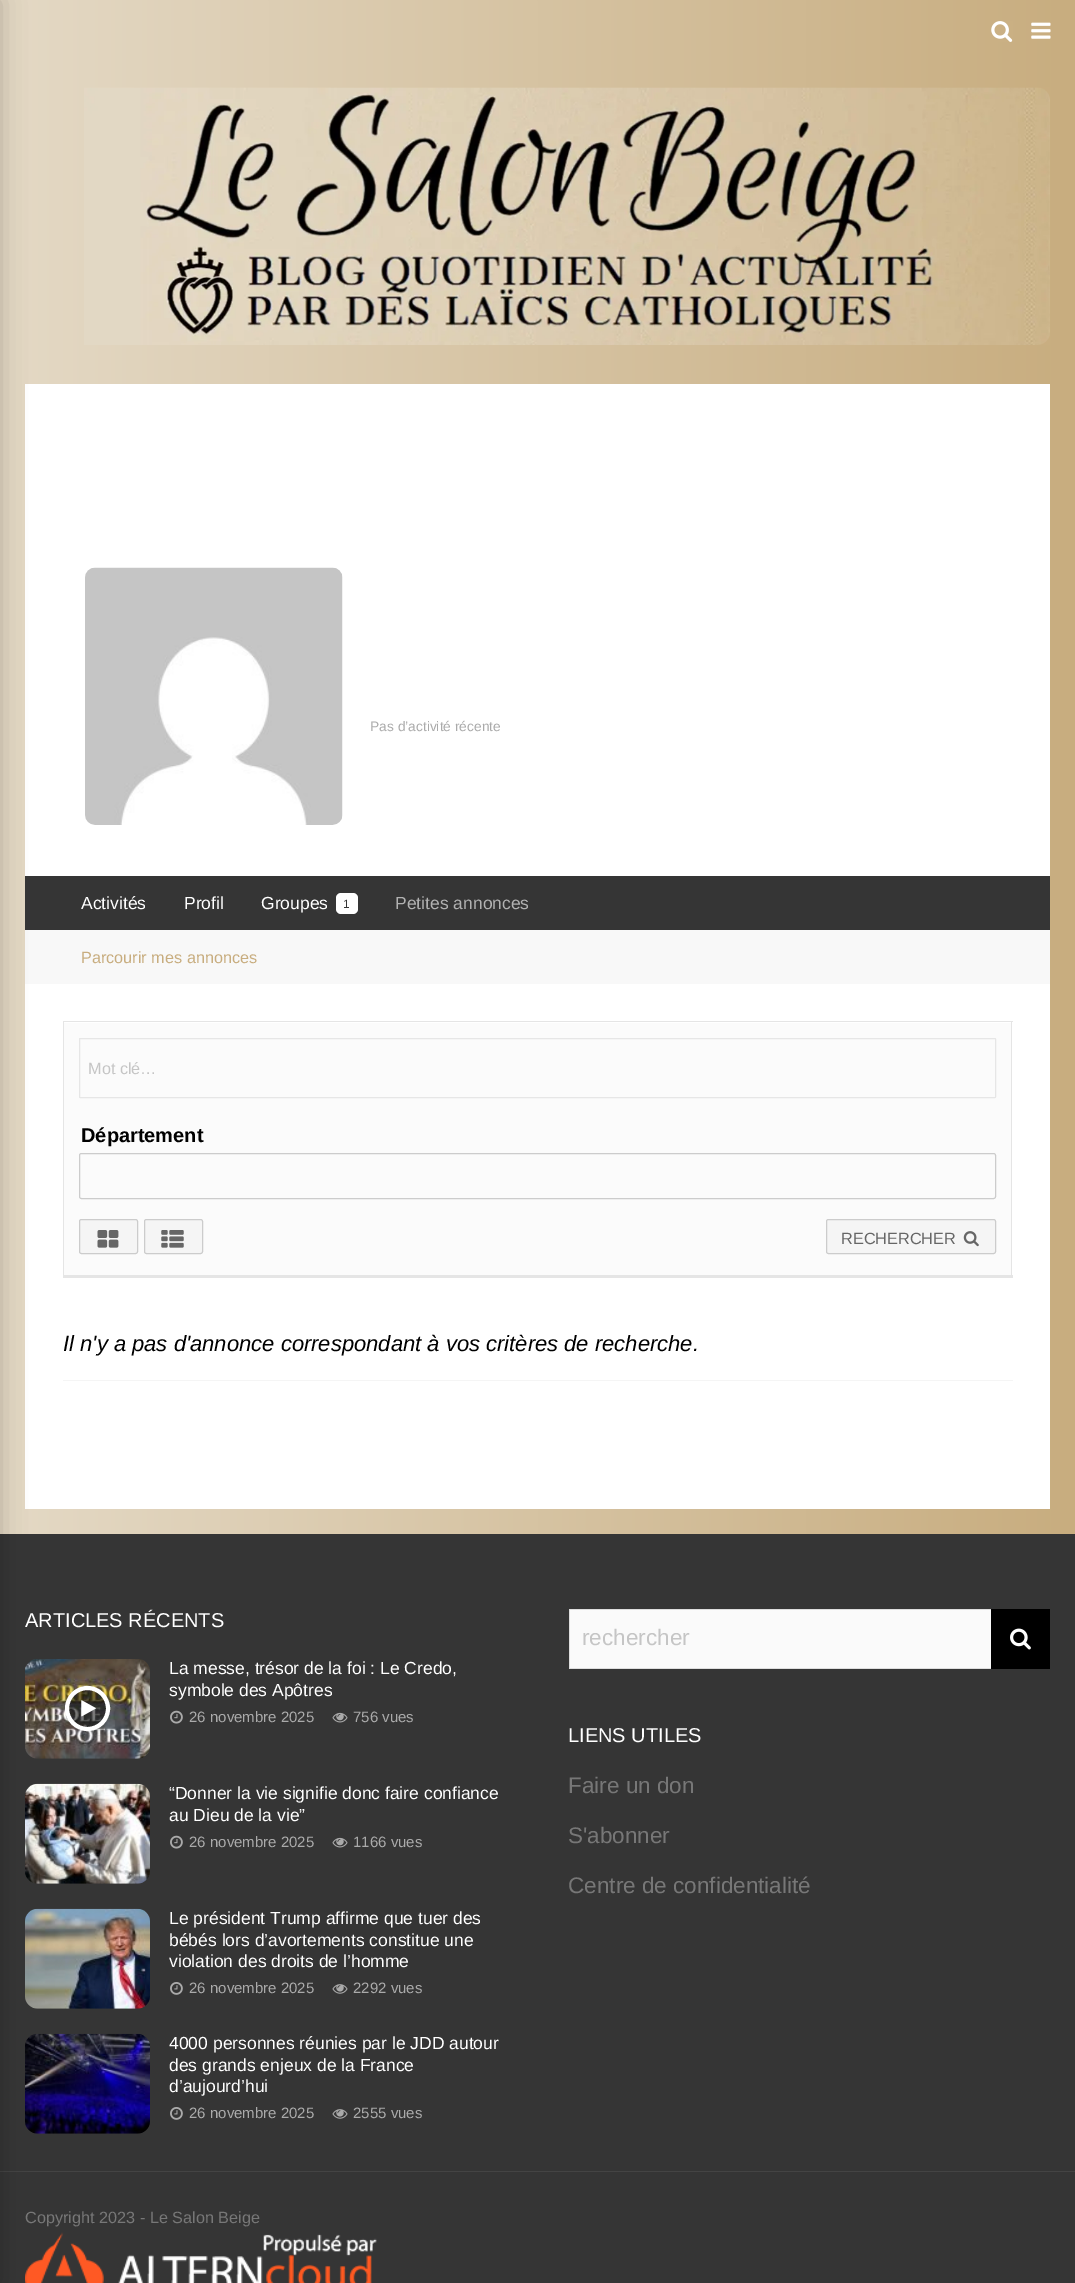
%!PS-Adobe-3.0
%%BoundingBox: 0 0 1075 2283
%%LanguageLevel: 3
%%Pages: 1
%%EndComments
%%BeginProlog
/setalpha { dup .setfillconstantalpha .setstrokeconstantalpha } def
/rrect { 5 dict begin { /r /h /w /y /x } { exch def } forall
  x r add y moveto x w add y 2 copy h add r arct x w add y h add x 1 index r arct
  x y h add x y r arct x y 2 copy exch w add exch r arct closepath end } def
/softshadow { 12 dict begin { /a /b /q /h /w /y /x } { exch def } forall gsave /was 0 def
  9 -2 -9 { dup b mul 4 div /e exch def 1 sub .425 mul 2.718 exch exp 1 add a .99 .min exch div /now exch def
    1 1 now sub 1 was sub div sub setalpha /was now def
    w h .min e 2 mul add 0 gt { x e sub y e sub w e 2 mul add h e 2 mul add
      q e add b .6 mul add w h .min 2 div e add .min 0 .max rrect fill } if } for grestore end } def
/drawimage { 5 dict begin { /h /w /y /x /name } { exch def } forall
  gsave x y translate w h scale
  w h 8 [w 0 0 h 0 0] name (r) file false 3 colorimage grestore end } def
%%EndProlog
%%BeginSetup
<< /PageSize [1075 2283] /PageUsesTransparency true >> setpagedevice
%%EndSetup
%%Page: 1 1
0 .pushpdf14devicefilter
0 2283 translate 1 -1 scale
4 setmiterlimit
1 setgray
0 0 1075 2283 rectfill
gsave newpath 0 0 moveto 1075 0 lineto 1075 1534 lineto 0 1534 lineto closepath clip newpath
<< /ShadingType 2 /ColorSpace /DeviceRGB /Coords [0 1174 1075 1174] /Extend [true true] /Function << /FunctionType 2 /Domain [0 1] /C0 [0.894 0.851 0.773] /C1 [0.784 0.678 0.498] /N 1 >> >> shfill grestore
25 384 1025 1125 rectfill
0.208 setgray
25 876 1025 54 rectfill
0.973 setgray
25 930 1025 54 rectfill
0.208 setgray
0 1534 1075 749 rectfill
(images/8.raw) 25 1659 125 100 drawimage
(images/12.raw) 25 1783 125 101 drawimage
(images/13.raw) 25 1908 125 101 drawimage
(images/16.raw) 25 2033 125 101 drawimage
0.267 setgray
0 2171 1075 1 rectfill
(images/18.raw) 25 2232 352 51 drawimage
0 setgray
-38 0 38 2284 0 12.5 0.2 softshadow
(images/1.raw) 991 21 22 21 drawimage
(images/2.raw) 1031 22 20 17 drawimage
(images/3.raw) 84 87 966 258 drawimage
(images/4.raw) 85 567 258 258 drawimage
1 setgray
336 893 22 21 5 rrect fill
0.984 setgray
64 1023 947 252 rectfill
0.898 setgray
63 1021 950 1 rectfill
1011 1021 1 257 rectfill
63 1275 950 3 rectfill
63 1021 1 257 rectfill
0.902 setgray
79.5 1038.5 916 59 0.5 rrect stroke
0.8 setgray
79.5 1153.5 916 45 2 rrect stroke
0.961 setgray
79.5 1219.5 58 34 2 rrect gsave fill grestore
0.8 setgray
stroke
(images/5.raw) 97 1230 22 18 drawimage
0.961 setgray
144.5 1219.5 58 34 2 rrect gsave fill grestore
0.8 setgray
stroke
(images/6.raw) 161 1230 23 18 drawimage
0.961 setgray
826.5 1219.5 169 34 2 rrect gsave fill grestore
0.8 setgray
stroke
(images/7.raw) 963 1231 16 16 drawimage
0.961 setgray
63 1380 950 1 rectfill
0.5 setalpha
0 setgray
newpath 87.5 1708.5 20.5 0 360 arc closepath fill
1 setalpha
1 setgray
4 setlinewidth
newpath 87.5 1708.5 20.5 0 360 arc closepath stroke
(images/9.raw) 81 1700 15 17 drawimage
(images/10.raw) 170 1710 13 14 drawimage
(images/11.raw) 332 1712 16 11 drawimage
(images/10.raw) 170 1835 13 14 drawimage
(images/11.raw) 332 1837 16 11 drawimage
(images/14.raw) 170 1982 13 13 drawimage
(images/15.raw) 332 1984 16 10 drawimage
(images/14.raw) 170 2107 13 13 drawimage
(images/15.raw) 332 2109 16 10 drawimage
0.98 setgray
570 1610 421 58 rectfill
0.867 setgray
569 1609 422 1 rectfill
569 1668 422 1 rectfill
569 1609 1 60 rectfill
0 setgray
991 1609 59 60 rectfill
(images/17.raw) 1010 1628 21 22 drawimage
/LiberationSans-Regular [13.75 0 0 -13.75 0 0] selectfont
0.667 setgray
370 731 moveto (Pas d’activité récente) show
/LiberationSans-Regular [17.5 0 0 -17.5 0 0] selectfont
1 setgray
81 909 moveto (Activités) show
184 909 moveto (Profil) show
261 909 moveto (Groupes) show
/LiberationSans-Regular [12 0 0 -12 0 0] selectfont
0.208 setgray
343 908 moveto (1) show
/LiberationSans-Regular [17.5 0 0 -17.5 0 0] selectfont
0.694 setgray
395 909 moveto (Petites annonces) show
/LiberationSans-Regular [16.25 0 0 -16.25 0 0] selectfont
0.784 0.678 0.498 setrgbcolor
81 963 moveto (Parcourir mes annonces) show
0.773 setgray
88 1074 moveto (Mot clé…) show
/LiberationSans-Bold [20 0 0 -20 0 0] selectfont
0 setgray
81 1142 moveto (Département) show
/LiberationSans-Regular [16.25 0 0 -16.25 0 0] selectfont
0.4 setgray
841 1244 moveto (RECHERCHER) show
/LiberationSans-Italic [22 0 0 -22 0 0] selectfont
0 setgray
63 1351 moveto (Il n'y a pas d'annonce correspondant à vos critères de recherche.) show
/LiberationSans-Regular [20 0 0 -20 0 0] selectfont
1 setgray
25 1627 moveto (ARTICLES RÉCENTS) show
/LiberationSans-Regular [17.5 0 0 -17.5 0 0] selectfont
169 1674 moveto (La messe, trésor de la foi : Le Credo,) show
169 1696 moveto (symbole des Apôtres) show
/LiberationSans-Regular [15 0 0 -15 0 0] selectfont
0.667 setgray
189 1722 moveto (26 novembre 2025) show
353 1722 moveto (756 vues) show
/LiberationSans-Regular [17.5 0 0 -17.5 0 0] selectfont
1 setgray
169 1799 moveto (“Donner la vie signifie donc faire confiance) show
169 1821 moveto (au Dieu de la vie”) show
/LiberationSans-Regular [15 0 0 -15 0 0] selectfont
0.667 setgray
189 1847 moveto (26 novembre 2025) show
353 1847 moveto (1166 vues) show
/LiberationSans-Regular [17.5 0 0 -17.5 0 0] selectfont
1 setgray
169 1924 moveto (Le président Trump affirme que tuer des) show
169 1946 moveto (bébés lors d’avortements constitue une) show
169 1967 moveto (violation des droits de l’homme) show
/LiberationSans-Regular [15 0 0 -15 0 0] selectfont
0.667 setgray
189 1993 moveto (26 novembre 2025) show
353 1993 moveto (2292 vues) show
/LiberationSans-Regular [17.5 0 0 -17.5 0 0] selectfont
1 setgray
169 2049 moveto (4000 personnes réunies par le JDD autour) show
169 2071 moveto (des grands enjeux de la France) show
169 2092 moveto (d’aujourd’hui) show
/LiberationSans-Regular [15 0 0 -15 0 0] selectfont
0.667 setgray
189 2118 moveto (26 novembre 2025) show
353 2118 moveto (2555 vues) show
/LiberationSans-Regular [22.5 0 0 -22.5 0 0] selectfont
0.773 setgray
582 1645 moveto (rechercher) show
/LiberationSans-Regular [20 0 0 -20 0 0] selectfont
1 setgray
568 1742 moveto (LIENS UTILES) show
/LiberationSans-Regular [22.5 0 0 -22.5 0 0] selectfont
0.467 setgray
568 1793 moveto (Faire un don) show
568 1843 moveto (S'abonner) show
568 1893 moveto (Centre de confidentialité) show
/LiberationSans-Regular [16.25 0 0 -16.25 0 0] selectfont
25 2223 moveto (Copyright 2023 - Le Salon Beige) show
.poppdf14devicefilter showpage
%%EOF
